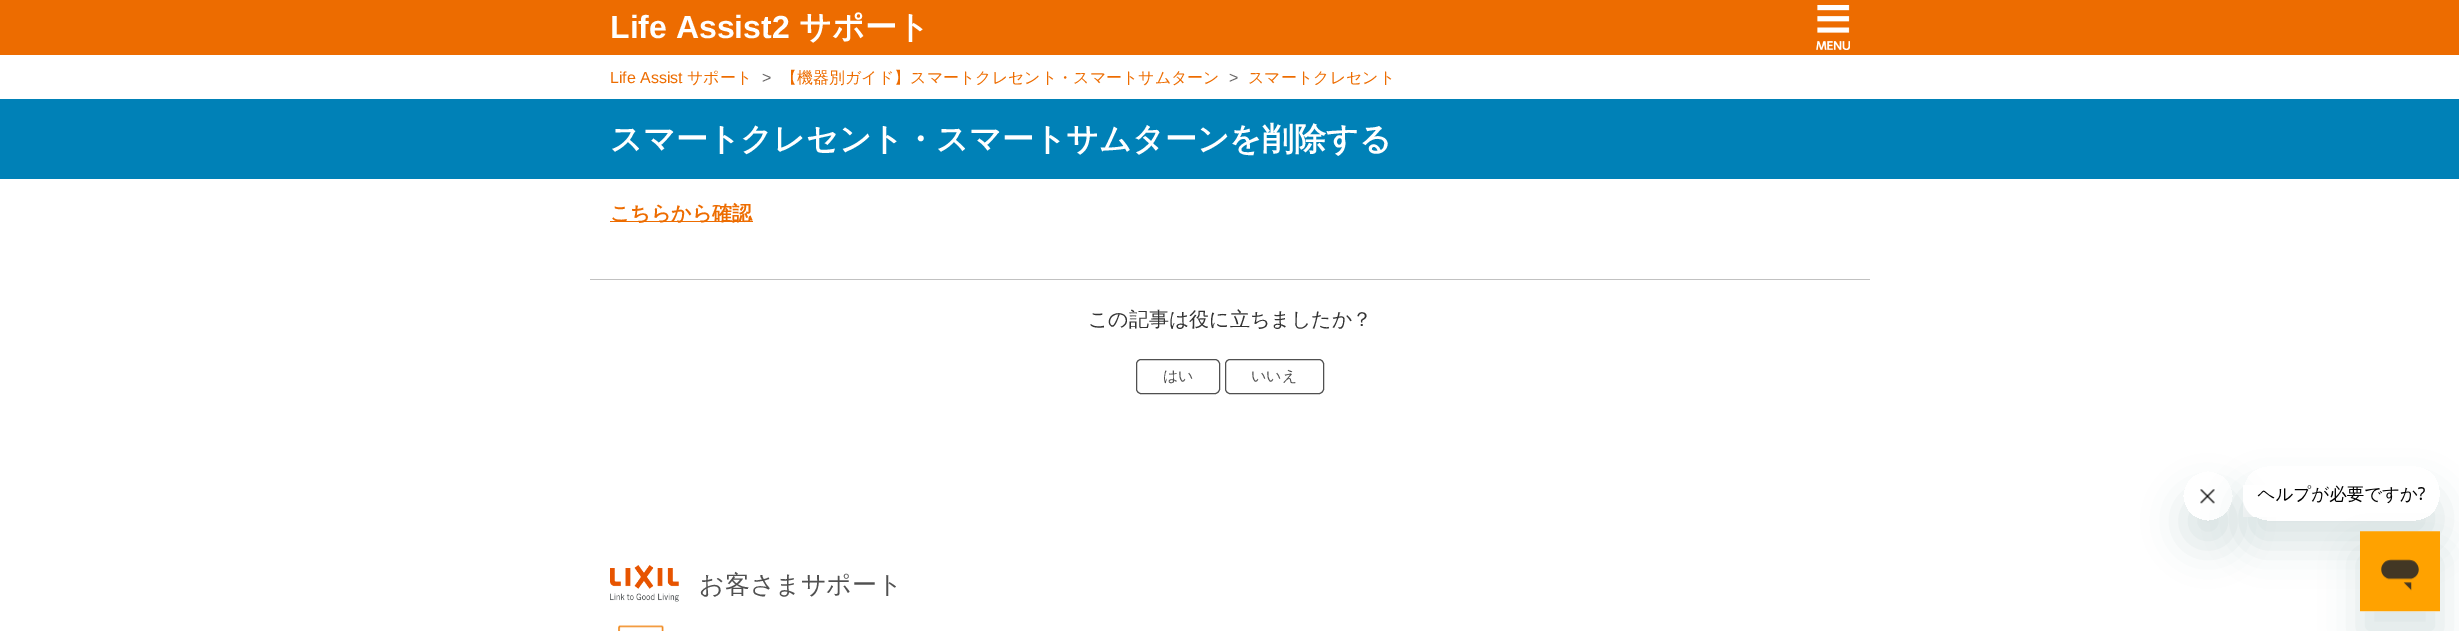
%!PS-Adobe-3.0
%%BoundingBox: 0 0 2459 631
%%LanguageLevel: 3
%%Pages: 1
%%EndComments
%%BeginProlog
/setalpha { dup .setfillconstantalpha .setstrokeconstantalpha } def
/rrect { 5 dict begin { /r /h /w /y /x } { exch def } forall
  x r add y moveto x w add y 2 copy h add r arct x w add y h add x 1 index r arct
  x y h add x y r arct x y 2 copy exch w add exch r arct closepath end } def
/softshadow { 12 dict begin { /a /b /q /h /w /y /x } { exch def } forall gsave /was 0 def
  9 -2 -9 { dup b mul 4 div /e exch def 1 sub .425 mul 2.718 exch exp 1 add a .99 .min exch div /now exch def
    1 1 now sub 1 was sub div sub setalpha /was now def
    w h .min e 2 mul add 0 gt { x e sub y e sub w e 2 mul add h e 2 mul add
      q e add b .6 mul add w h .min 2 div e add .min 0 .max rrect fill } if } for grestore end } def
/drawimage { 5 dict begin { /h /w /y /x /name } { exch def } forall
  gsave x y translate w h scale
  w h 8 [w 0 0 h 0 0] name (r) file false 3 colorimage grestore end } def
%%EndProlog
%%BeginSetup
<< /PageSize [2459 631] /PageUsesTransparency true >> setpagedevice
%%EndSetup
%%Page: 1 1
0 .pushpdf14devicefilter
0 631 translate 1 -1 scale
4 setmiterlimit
1 setgray
0 0 2459 631 rectfill
0.929 0.424 0 setrgbcolor
0 0 2459 55 rectfill
(images/1.raw) 1816 5 34 45 drawimage
0 0.506 0.718 setrgbcolor
0 99 2459 80 rectfill
0.929 0.424 0 setrgbcolor
610 221 143 1 rectfill
0.757 setgray
590 279 1280 1 rectfill
0.314 setgray
1136.5 359.5 83 34 4.5 rrect stroke
1225.5 359.5 98 34 4.5 rrect stroke
(images/2.raw) 610 565 69 37 drawimage
(images/3.raw) 618 625 46 6 drawimage
gsave
newpath 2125 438 moveto 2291 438 lineto 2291 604 lineto 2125 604 lineto closepath 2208 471 moveto 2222 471 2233 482 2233 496 curveto 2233 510 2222 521 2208 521 curveto 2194 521 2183 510 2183 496 curveto 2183 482 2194 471 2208 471 curveto closepath eoclip newpath
0.09 0.286 0.302 setrgbcolor
2183 496 50 50 25 19 0.15 softshadow
grestore
(images/5.raw) 2200 489 15 15 drawimage
gsave
newpath 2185 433 moveto 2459 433 lineto 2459 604 lineto 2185 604 lineto closepath 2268 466 moveto 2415 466 lineto 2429 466 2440 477 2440 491 curveto 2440 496 lineto 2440 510 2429 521 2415 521 curveto 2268 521 lineto 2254 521 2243 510 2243 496 curveto 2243 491 lineto 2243 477 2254 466 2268 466 curveto closepath eoclip newpath
0.09 0.286 0.302 setrgbcolor
2243 491 197 55 25 19 0.15 softshadow
grestore
(images/4.raw) 2243 485 182 32 drawimage
0.09 0.286 0.302 setrgbcolor
2360 556 80 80 0 19 0.15 softshadow
(images/6.raw) 2360 531 80 81 drawimage
/LiberationSans-Bold [32 0 0 -32 0 0] selectfont
1 setgray
610 38 moveto (Life Assist2) show
/WenQuanYiZenHei-Bold [32 0 0 -32 0 0] selectfont
799 38 moveto (サポート) show
/LiberationSans-Regular [16 0 0 -16 0 0] selectfont
0.929 0.424 0 setrgbcolor
610 83 moveto (Life Assist) show
/WenQuanYiZenHei-Medium [16 0 0 -16 0 0] selectfont
687 83 moveto (サポート) show
/LiberationSans-Regular [16 0 0 -16 0 0] selectfont
0.4 0.392 0.392 setrgbcolor
762 83 moveto (>) show
/WenQuanYiZenHei-Medium [16 0 0 -16 0 0] selectfont
0.929 0.424 0 setrgbcolor
781 83 moveto (【機器別ガイド】スマートクレセント・スマートサムターン) show
/LiberationSans-Regular [16 0 0 -16 0 0] selectfont
0.4 0.392 0.392 setrgbcolor
1229 83 moveto (>) show
/WenQuanYiZenHei-Medium [16 0 0 -16 0 0] selectfont
0.929 0.424 0 setrgbcolor
1248 83 moveto (スマートクレセント) show
/WenQuanYiZenHei-Bold [32 0 0 -32 0 0] selectfont
1 setgray
610 150 moveto (スマートクレセント・スマートサムターンを削除する) show
/WenQuanYiZenHei-Bold [20 0 0 -20 0 0] selectfont
0.929 0.424 0 setrgbcolor
610 220 moveto (こちらから確認) show
/WenQuanYiZenHei-Medium [20 0 0 -20 0 0] selectfont
0.2 setgray
1088 326 moveto (この記事は役に立ちましたか？) show
/WenQuanYiZenHei-Medium [15 0 0 -15 0 0] selectfont
0.314 setgray
1163 381 moveto (はい) show
1251 381 moveto (いいえ) show
/WenQuanYiZenHei-Medium [25 0 0 -25 0 0] selectfont
699 593 moveto (お客さまサポート) show
.poppdf14devicefilter showpage
%%EOF
